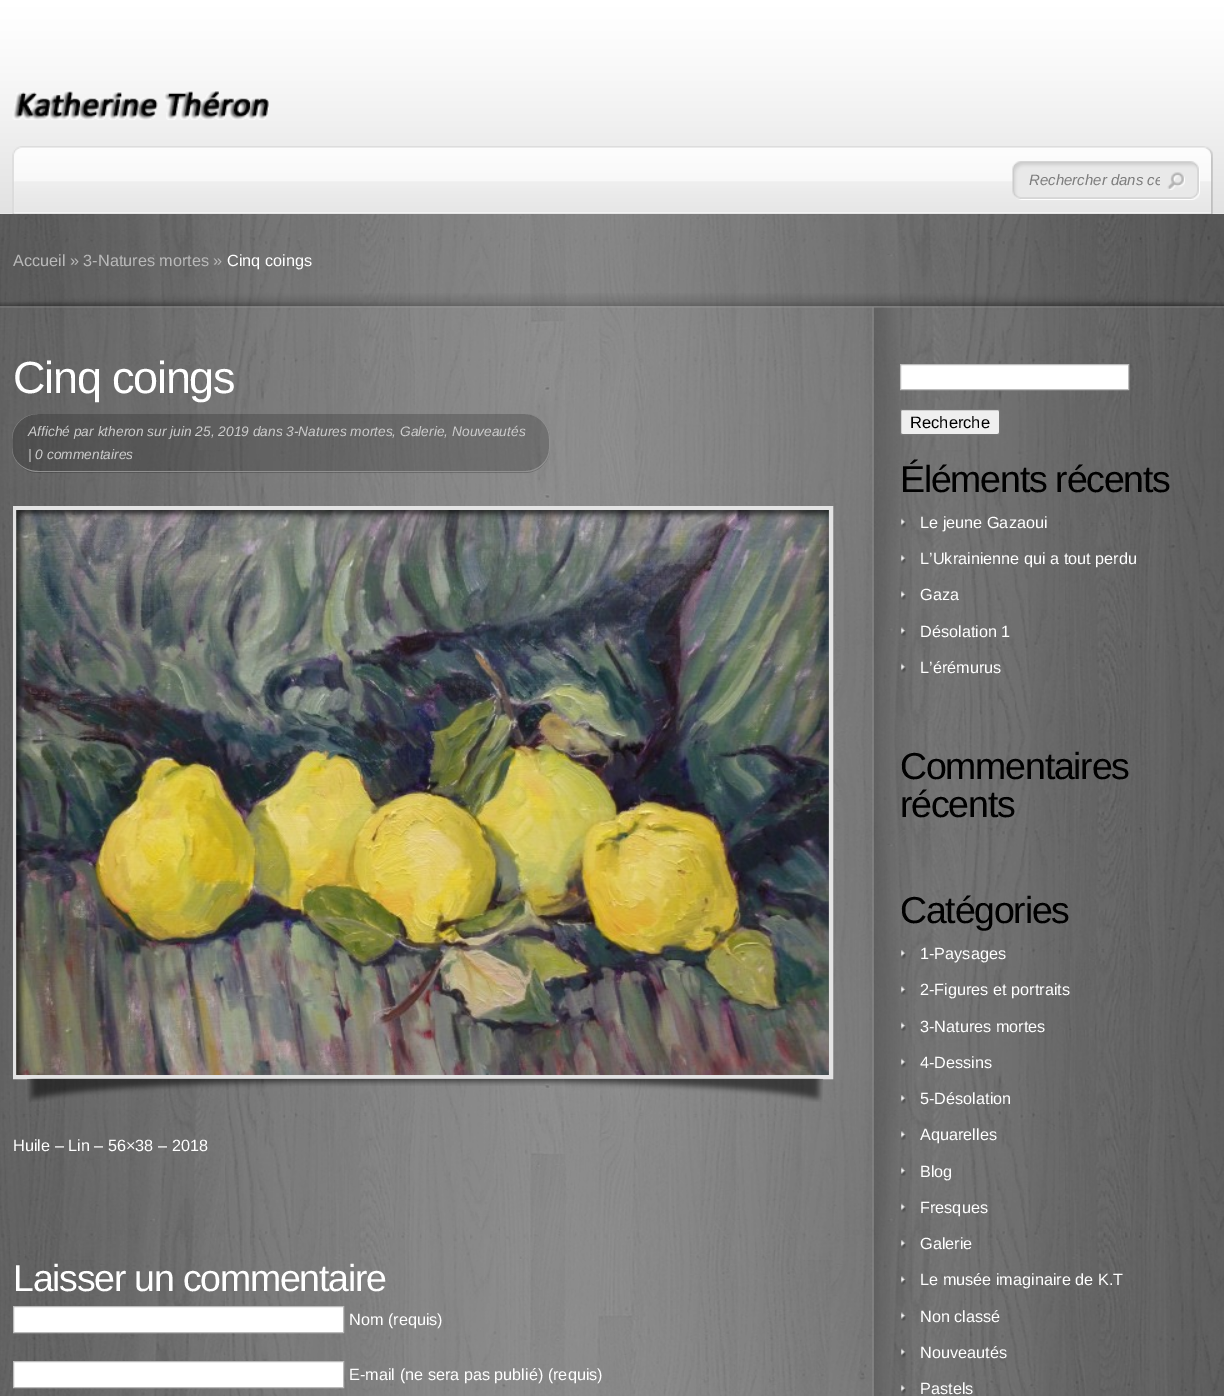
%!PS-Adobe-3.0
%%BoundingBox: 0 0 1224 1396
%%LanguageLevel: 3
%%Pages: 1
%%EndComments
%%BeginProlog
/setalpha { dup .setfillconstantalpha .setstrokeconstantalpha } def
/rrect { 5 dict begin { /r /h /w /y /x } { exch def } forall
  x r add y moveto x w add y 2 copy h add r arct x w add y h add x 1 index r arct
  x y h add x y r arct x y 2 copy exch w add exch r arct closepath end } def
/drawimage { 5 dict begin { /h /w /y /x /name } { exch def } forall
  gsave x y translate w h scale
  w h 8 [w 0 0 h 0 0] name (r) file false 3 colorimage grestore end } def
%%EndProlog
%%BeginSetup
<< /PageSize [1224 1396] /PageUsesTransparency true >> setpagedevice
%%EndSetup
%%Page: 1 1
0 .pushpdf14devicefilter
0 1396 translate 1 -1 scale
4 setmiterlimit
1 setgray
0 0 1224 1396 rectfill
(images/1.raw) 0 214 1224 1182 drawimage
(images/2.raw) 0 0 1224 213 drawimage
(images/3.raw) 12 90 257 30 drawimage
(images/4.raw) 12 146 1201 68 drawimage
(images/5.raw) 1012 161 188 39 drawimage
(images/6.raw) 1167 172 18 18 drawimage
(images/7.raw) 0 302 1224 6 drawimage
(images/8.raw) 0 293 1224 15 drawimage
0.09 setalpha
0 setgray
0 213 1224 95 rectfill
1 setalpha
(images/9.raw) 0 214 1224 94 drawimage
(images/10.raw) 0 307 1224 1089 drawimage
(images/11.raw) 872 307 40 1089 drawimage
0.2 setalpha
13 414 537 59 25 rrect fill
1 setalpha
0.565 setgray
newpath 38 414 moveto 525 414 lineto 539 414 550 425 550 439 curveto 550 448 lineto 550 461 539 472 525 472 curveto 38 472 lineto 24 472 12 461 12 448 curveto 12 439 lineto 12 425 24 414 38 414 curveto closepath 38 414 moveto 525 414 lineto 538 414 549 425 549 439 curveto 549 448 lineto 549 461 538 471 525 471 curveto 38 471 lineto 24 471 12 461 12 448 curveto 12 439 lineto 12 425 24 414 38 414 curveto closepath eofill
0.89 setgray
4 setlinewidth
15 508 816 569 rectstroke
(images/12.raw) 16 510 813 565 drawimage
(images/13.raw) 16 510 813 565 drawimage
(images/15.raw) 287 1078 277 8 drawimage
(images/14.raw) 27 1078 261 24 drawimage
(images/16.raw) 563 1078 260 24 drawimage
1 setgray
newpath 13.5 1306.5 moveto 343.5 1306.5 lineto 343.5 1332.5 lineto 13.5 1332.5 lineto closepath gsave fill grestore
0.733 setgray
1 setlinewidth
stroke
1 setgray
newpath 13.5 1361.5 moveto 343.5 1361.5 lineto 343.5 1387.5 lineto 13.5 1387.5 lineto closepath gsave fill grestore
0.733 setgray
stroke
1 setgray
newpath 900.5 364.5 moveto 1128.5 364.5 lineto 1128.5 389.5 lineto 900.5 389.5 lineto closepath gsave fill grestore
0.733 setgray
stroke
0.937 setgray
900.5 409.5 99 25 2 rrect gsave fill grestore
0.463 setgray
stroke
(images/17.raw) 901 518 5 10 drawimage
(images/18.raw) 901 555 5 9 drawimage
(images/19.raw) 901 591 5 9 drawimage
(images/20.raw) 901 627 5 9 drawimage
(images/21.raw) 901 663 5 10 drawimage
(images/22.raw) 901 950 5 9 drawimage
(images/23.raw) 901 986 5 9 drawimage
(images/24.raw) 901 1022 5 9 drawimage
(images/25.raw) 901 1058 5 10 drawimage
(images/26.raw) 901 1095 5 9 drawimage
(images/27.raw) 901 1131 5 9 drawimage
(images/28.raw) 901 1167 5 9 drawimage
(images/29.raw) 901 1203 5 10 drawimage
(images/30.raw) 901 1240 5 9 drawimage
(images/31.raw) 901 1276 5 9 drawimage
(images/32.raw) 901 1312 5 9 drawimage
(images/33.raw) 901 1348 5 10 drawimage
(images/34.raw) 901 1385 5 9 drawimage
gsave
1029 171 131 18 rectclip
/LiberationSans-Italic [15 0 0 -15 0 0] selectfont
0.49 setgray
1029 185 moveto (Rechercher dans ce) show
grestore
/LiberationSans-Regular [16.25 0 0 -16.25 0 0] selectfont
0.725 setgray
13 266 moveto (Accueil » 3-Natures mortes ») show
1 setgray
227 266 moveto (Cinq coings) show
/LiberationSans-Regular [45 0 0 -45 0 0] selectfont
13 393 moveto -1.25 0 (Cinq coings) ashow
/LiberationSans-Italic [13.75 0 0 -13.75 0 0] selectfont
0.8 setgray
28 436 moveto (Affiché par ktheron sur juin 25, 2019 dans 3-Natures mortes, Galerie, Nouveautés) show
28 459 moveto (| 0 commentaires) show
/LiberationSans-Regular [16.25 0 0 -16.25 0 0] selectfont
1 setgray
13 1151 moveto (Huile – Lin – 56×38 – 2018) show
/LiberationSans-Regular [37.5 0 0 -37.5 0 0] selectfont
13 1291 moveto -1.25 0 (Laisser un commentaire) ashow
/LiberationSans-Regular [16.25 0 0 -16.25 0 0] selectfont
349 1325 moveto (Nom \(requis\)) show
349 1380 moveto (E-mail \(ne sera pas publié\) \(requis\)) show
/LiberationSans-Regular [16.5 0 0 -16.5 0 0] selectfont
0 setgray
910 428 moveto (Recherche) show
/LiberationSans-Regular [37.5 0 0 -37.5 0 0] selectfont
900 492 moveto -1.25 0 (Éléments récents) ashow
/LiberationSans-Regular [16.25 0 0 -16.25 0 0] selectfont
1 setgray
920 528 moveto (Le jeune Gazaoui) show
920 564 moveto (L’Ukrainienne qui a tout perdu) show
920 600 moveto (Gaza) show
920 637 moveto (Désolation 1) show
920 673 moveto (L’érémurus) show
/LiberationSans-Regular [37.5 0 0 -37.5 0 0] selectfont
0 setgray
900 779 moveto -1.25 0 (Commentaires) ashow
900 817 moveto -1.25 0 (récents) ashow
900 923 moveto -1.25 0 (Catégories) ashow
/LiberationSans-Regular [16.25 0 0 -16.25 0 0] selectfont
1 setgray
920 959 moveto (1-Paysages) show
920 995 moveto (2-Figures et portraits) show
920 1032 moveto (3-Natures mortes) show
920 1068 moveto (4-Dessins) show
920 1104 moveto (5-Désolation) show
920 1140 moveto (Aquarelles) show
920 1177 moveto (Blog) show
920 1213 moveto (Fresques) show
920 1249 moveto (Galerie) show
920 1285 moveto (Le musée imaginaire de K.T) show
920 1322 moveto (Non classé) show
920 1358 moveto (Nouveautés) show
920 1394 moveto (Pastels) show
.poppdf14devicefilter showpage
%%EOF
